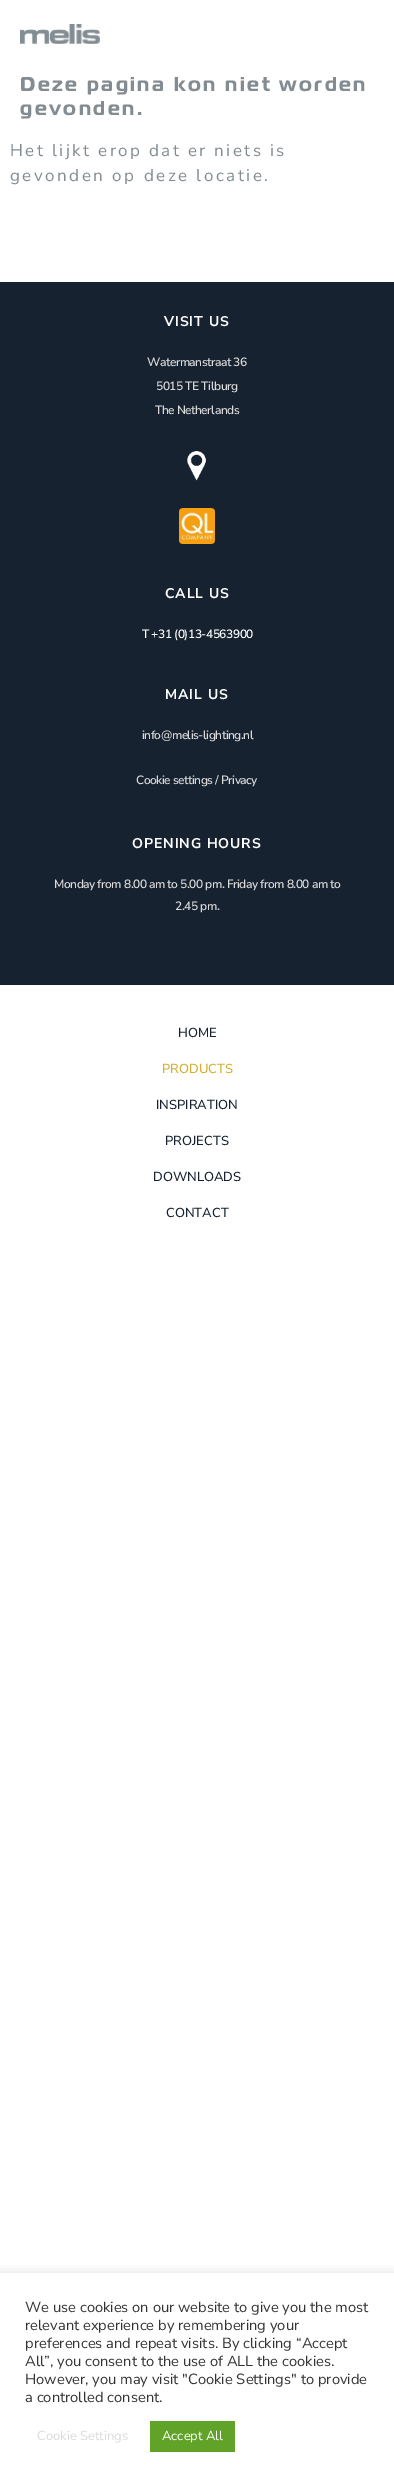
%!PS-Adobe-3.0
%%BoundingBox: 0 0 394 2482
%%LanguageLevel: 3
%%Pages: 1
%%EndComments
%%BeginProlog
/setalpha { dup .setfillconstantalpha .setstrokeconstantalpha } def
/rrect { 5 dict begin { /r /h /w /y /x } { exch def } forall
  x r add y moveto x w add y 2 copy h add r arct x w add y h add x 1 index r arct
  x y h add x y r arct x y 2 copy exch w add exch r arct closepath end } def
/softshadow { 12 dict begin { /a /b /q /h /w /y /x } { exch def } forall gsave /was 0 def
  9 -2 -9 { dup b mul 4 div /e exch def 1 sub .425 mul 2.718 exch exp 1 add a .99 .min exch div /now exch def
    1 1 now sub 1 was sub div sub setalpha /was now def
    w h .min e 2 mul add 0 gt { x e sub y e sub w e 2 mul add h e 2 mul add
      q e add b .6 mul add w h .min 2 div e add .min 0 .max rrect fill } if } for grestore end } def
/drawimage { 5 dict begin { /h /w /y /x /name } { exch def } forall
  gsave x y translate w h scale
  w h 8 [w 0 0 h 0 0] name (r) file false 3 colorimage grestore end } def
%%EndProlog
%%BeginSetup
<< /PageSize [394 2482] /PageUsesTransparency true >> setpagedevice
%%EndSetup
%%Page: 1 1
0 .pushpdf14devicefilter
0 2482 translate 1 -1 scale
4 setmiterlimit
1 setgray
0 0 394 2482 rectfill
(images/1.raw) 20 24 80 20 drawimage
0.086 0.133 0.184 setrgbcolor
0 282 394 703 rectfill
(images/2.raw) 187 451 19 30 drawimage
(images/3.raw) 179 508 36 36 drawimage
gsave
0 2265 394 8 rectclip
0.675 0.671 0.671 setrgbcolor
0 2272 394 209 0 5 0.3 softshadow
grestore
0.38 0.635 0.161 setrgbcolor
150 2421 85 31 rectfill
/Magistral-Bold [20 0 0 -20 0 0] selectfont
0.514 0.549 0.573 setrgbcolor
20 91 moveto 2.5 0 (Deze pagina kon niet worden) ashow
20 115 moveto 2.5 0 (gevonden.) ashow
/NunitoSans-Regular [17 0 0 -17 0 0] selectfont
10 156 moveto -0.5 0 32 2.5 0 (Het lijkt erop dat er niets is) awidthshow
10 181 moveto 2.5 0 (gevonden op deze locatie.) ashow
/NunitoSans-Bold [14 0 0 -14 0 0] selectfont
1 setgray
164 326 moveto 0.9 0 (VISIT US) ashow
/NunitoSans-SemiBold [12 0 0 -12 0 0] selectfont
0.855 setgray
147 366 moveto -0.5 0 (Watermanstraat 36) ashow
156 390 moveto -0.5 0 (5015 TE Tilburg) ashow
155 414 moveto -0.5 0 (The Netherlands) ashow
/NunitoSans-Bold [14 0 0 -14 0 0] selectfont
1 setgray
165 598 moveto 0.9 0 (CALL US) ashow
/NunitoSans-SemiBold [12 0 0 -12 0 0] selectfont
142 638 moveto -0.5 0 (T +31 \(0\)13-4563900) ashow
/NunitoSans-Bold [14 0 0 -14 0 0] selectfont
165 699 moveto 0.9 0 (MAIL US) ashow
/NunitoSans-SemiBold [12 0 0 -12 0 0] selectfont
0.855 setgray
142 739 moveto -0.5 0 (info@melis-lighting.nl) ashow
136 784 moveto -0.5 0 (Cookie settings / Privacy) ashow
/NunitoSans-Bold [14 0 0 -14 0 0] selectfont
1 setgray
132 848 moveto 0.9 0 (OPENING HOURS) ashow
/NunitoSans-SemiBold [12 0 0 -12 0 0] selectfont
0.855 setgray
54 888 moveto -0.5 0 (Monday from 8.00 am to 5.00 pm. Friday from 8.00 am to) ashow
175 910 moveto -0.5 0 (2.45 pm.) ashow
/NunitoSans-Medium [13 0 0 -13 0 0] selectfont
0.082 0.129 0.188 setrgbcolor
178 1037 moveto (HOME) show
0.827 0.686 0.18 setrgbcolor
162 1073 moveto (PRODUCTS) show
0.082 0.129 0.188 setrgbcolor
156 1109 moveto (INSPIRATION) show
165 1145 moveto (PROJECTS) show
153 1181 moveto (DOWNLOADS) show
166 1217 moveto (CONTACT) show
/NunitoSans-Regular [14.7 0 0 -14.7 0 0] selectfont
0.2 setgray
25 2312 moveto (We use cookies on our website to give you the most) show
25 2330 moveto (relevant experience by remembering your) show
25 2348 moveto (preferences and repeat visits. By clicking “Accept) show
25 2366 moveto (All”, you consent to the use of ALL the cookies.) show
25 2384 moveto (However, you may visit "Cookie Settings" to provide) show
25 2402 moveto (a controlled consent.) show
/NunitoSans-Regular [13 0 0 -13 0 0] selectfont
0.855 setgray
37 2440 moveto (Cookie Settings) show
1 setgray
162 2440 moveto (Accept All) show
.poppdf14devicefilter showpage
%%EOF
